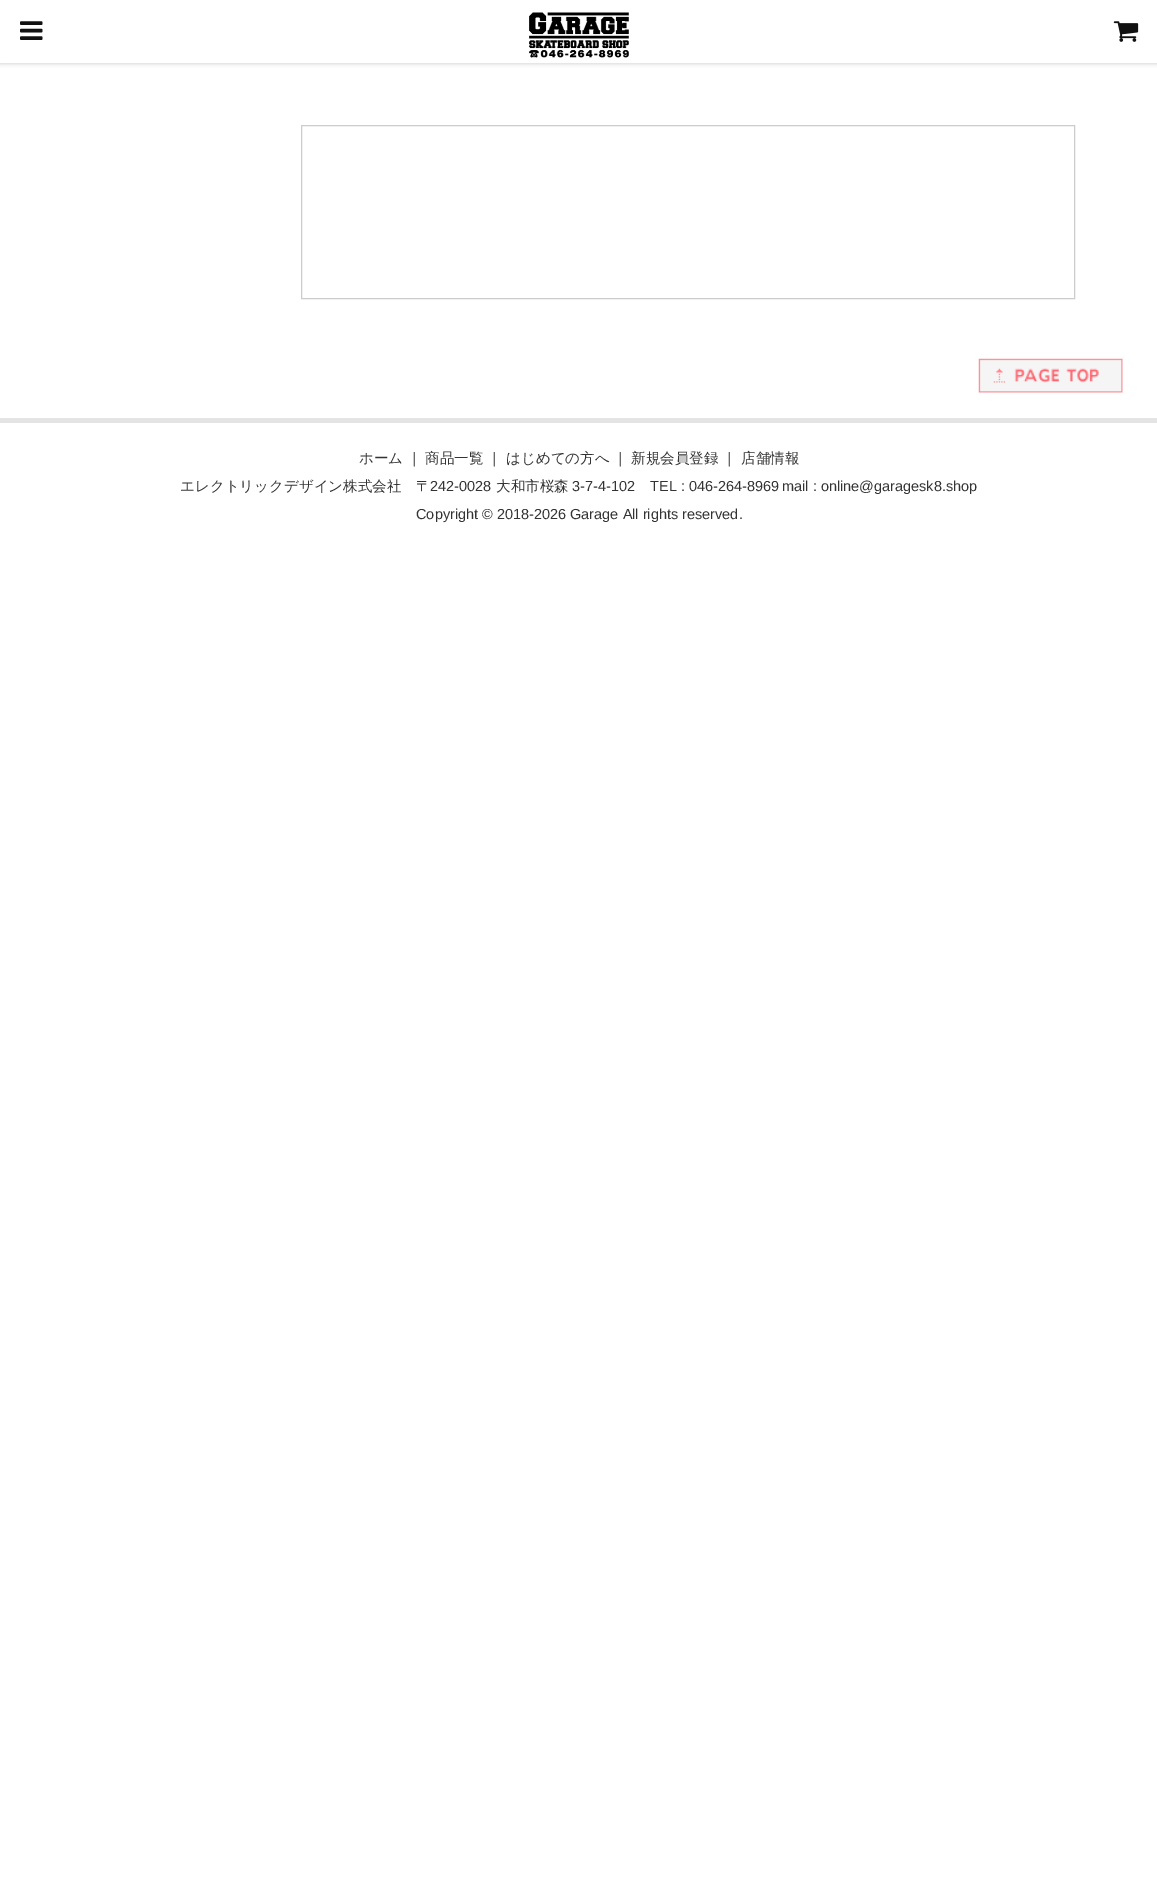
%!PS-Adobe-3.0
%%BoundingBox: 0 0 1157 1882
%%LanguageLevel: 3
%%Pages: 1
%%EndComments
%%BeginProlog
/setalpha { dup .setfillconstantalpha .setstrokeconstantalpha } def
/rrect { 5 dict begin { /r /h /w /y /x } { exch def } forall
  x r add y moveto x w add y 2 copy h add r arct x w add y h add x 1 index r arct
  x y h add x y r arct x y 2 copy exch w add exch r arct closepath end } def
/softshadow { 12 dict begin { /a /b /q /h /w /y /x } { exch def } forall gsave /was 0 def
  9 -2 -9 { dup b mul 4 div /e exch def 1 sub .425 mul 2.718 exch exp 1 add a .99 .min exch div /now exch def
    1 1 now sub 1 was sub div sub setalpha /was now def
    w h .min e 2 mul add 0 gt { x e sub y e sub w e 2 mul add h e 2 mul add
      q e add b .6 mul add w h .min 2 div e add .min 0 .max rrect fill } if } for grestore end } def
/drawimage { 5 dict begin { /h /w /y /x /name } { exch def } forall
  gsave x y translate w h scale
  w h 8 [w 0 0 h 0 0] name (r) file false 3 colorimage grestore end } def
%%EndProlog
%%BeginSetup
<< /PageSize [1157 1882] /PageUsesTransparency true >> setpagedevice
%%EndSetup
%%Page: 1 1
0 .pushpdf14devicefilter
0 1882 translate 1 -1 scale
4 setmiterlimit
1 setgray
0 0 1157 1882 rectfill
0 setgray
0 -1 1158 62 0 3 0.5 softshadow
1 setgray
0 0 1157 63 rectfill
(images/1.raw) 20 21 23 19 drawimage
(images/2.raw) 529 12 100 46 drawimage
(images/3.raw) 1113 21 26 21 drawimage
0.8 setgray
301.5 125.5 773 173 rectstroke
(images/4.raw) 978 358 145 35 drawimage
0.894 setgray
0 418 1157 5 rectfill
/WenQuanYiZenHei-Medium [14.5 0 0 -14.5 0 0] selectfont
0.2 setgray
359 463 moveto (ホーム) show
407 463 moveto (｜) show
425 463 moveto (商品一覧) show
487 463 moveto (｜) show
506 463 moveto (はじめての方へ) show
613 463 moveto (｜) show
631 463 moveto (新規会員登録) show
722 463 moveto (｜) show
741 463 moveto (店舗情報) show
180 491 moveto (エレクトリックデザイン株式会社　〒) show
/LiberationSans-Regular [14.5 0 0 -14.5 0 0] selectfont
430 491 moveto (242-0028) show
/WenQuanYiZenHei-Medium [14.5 0 0 -14.5 0 0] selectfont
496 491 moveto (大和市桜森) show
/LiberationSans-Regular [14.5 0 0 -14.5 0 0] selectfont
572 491 moveto (3-7-4-102) show
650 491 moveto (TEL : 046-264-8969) show
782 491 moveto (mail : online@garagesk8.shop) show
416 519 moveto (Copyright © 2018-2026 Garage All rights reserved.) show
.poppdf14devicefilter showpage
%%EOF
